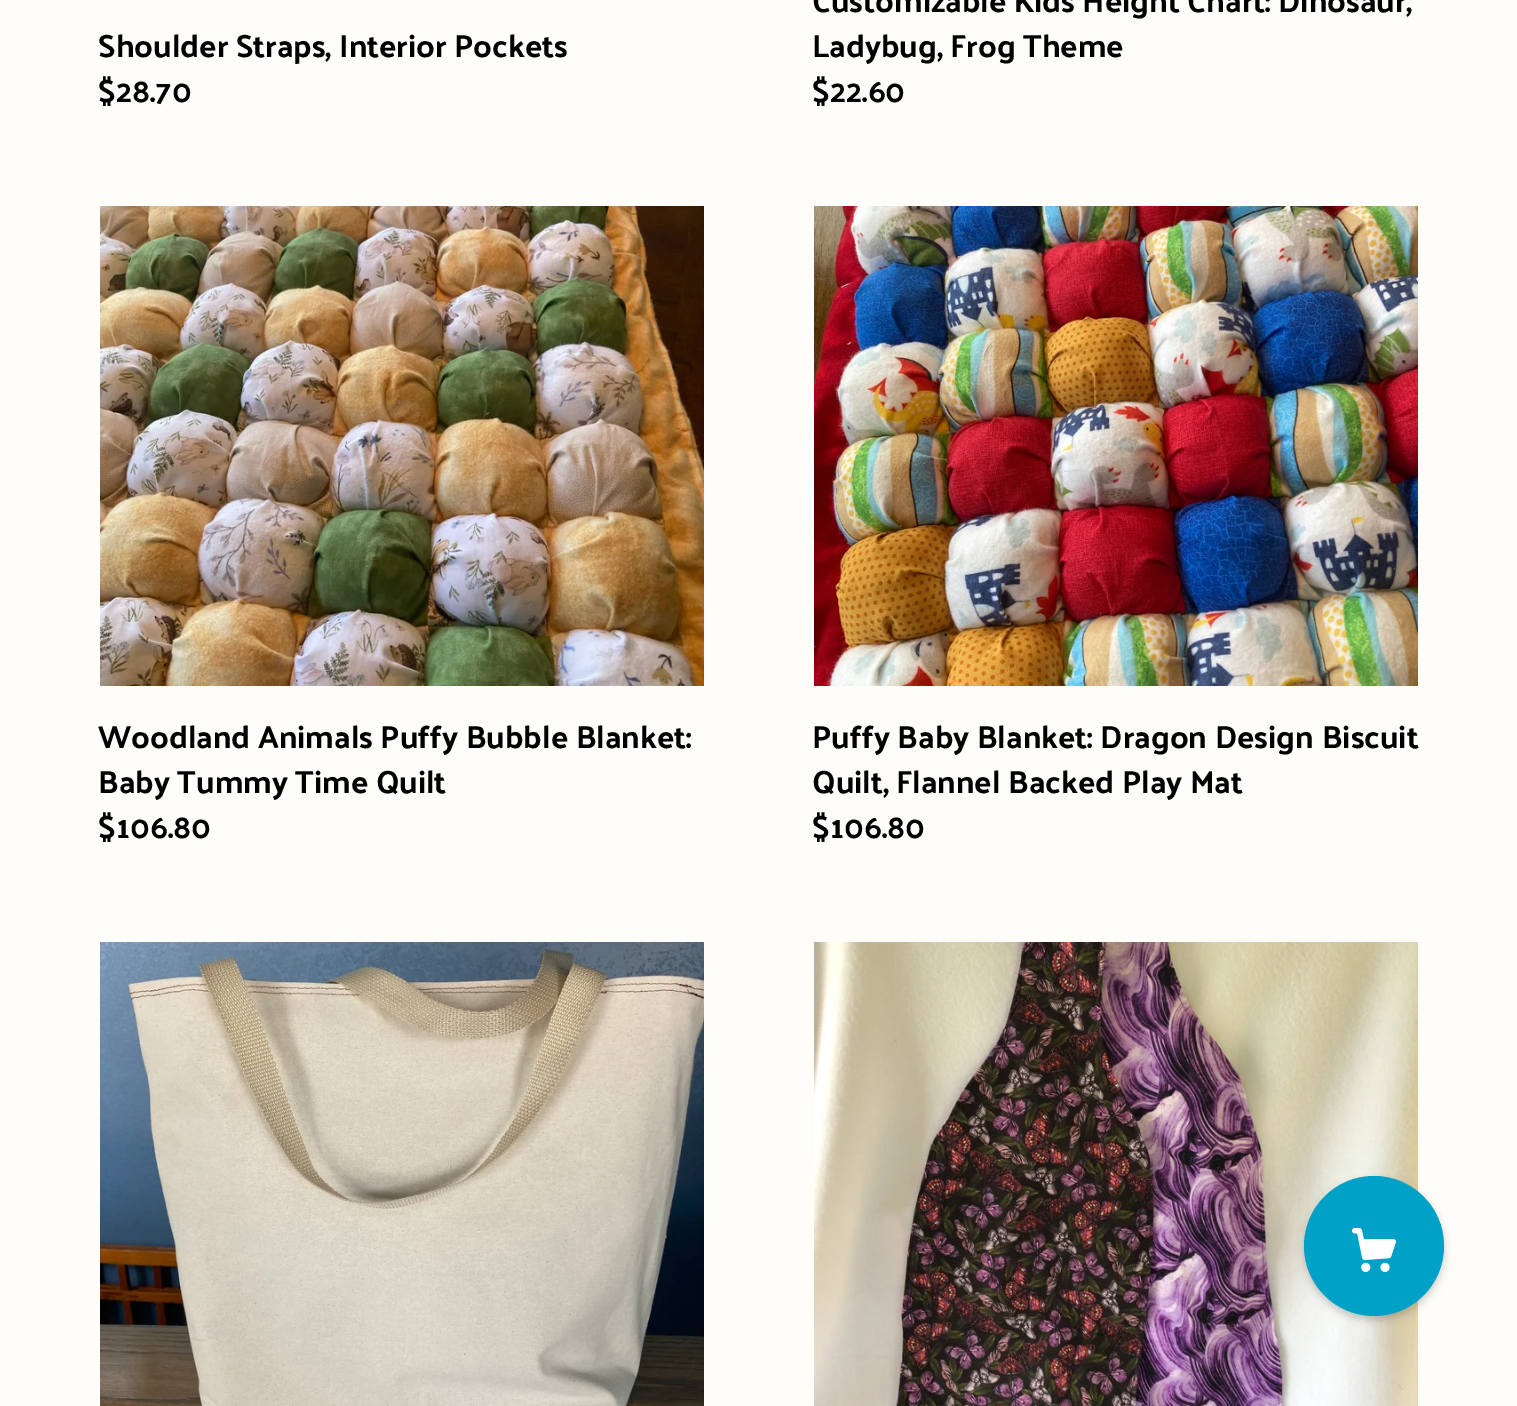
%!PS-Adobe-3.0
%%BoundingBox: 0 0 1517 1406
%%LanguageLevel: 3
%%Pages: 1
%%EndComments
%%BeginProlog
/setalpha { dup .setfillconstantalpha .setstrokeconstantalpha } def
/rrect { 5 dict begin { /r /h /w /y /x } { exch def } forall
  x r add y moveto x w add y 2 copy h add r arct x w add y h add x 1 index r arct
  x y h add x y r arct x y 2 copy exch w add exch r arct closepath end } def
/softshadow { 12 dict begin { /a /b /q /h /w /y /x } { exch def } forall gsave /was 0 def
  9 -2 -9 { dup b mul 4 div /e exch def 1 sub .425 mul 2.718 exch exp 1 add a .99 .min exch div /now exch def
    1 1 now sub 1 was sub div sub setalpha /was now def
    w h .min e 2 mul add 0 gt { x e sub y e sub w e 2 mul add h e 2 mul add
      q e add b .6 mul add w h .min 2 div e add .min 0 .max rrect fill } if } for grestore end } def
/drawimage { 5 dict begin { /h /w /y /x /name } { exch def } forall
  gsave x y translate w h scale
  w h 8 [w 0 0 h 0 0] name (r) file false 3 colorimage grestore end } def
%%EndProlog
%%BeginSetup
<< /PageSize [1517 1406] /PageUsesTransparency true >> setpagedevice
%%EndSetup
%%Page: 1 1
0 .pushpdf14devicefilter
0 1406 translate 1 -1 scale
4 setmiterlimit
1 0.992 0.98 setrgbcolor
0 0 1517 1406 rectfill
(images/1.raw) 100 206 604 480 drawimage
(images/2.raw) 814 206 604 480 drawimage
(images/3.raw) 100 942 604 464 drawimage
(images/4.raw) 814 942 604 464 drawimage
0 setgray
1304 1180 140 140 70 4 0.2 softshadow
0 0.631 0.78 setrgbcolor
newpath 1374 1246 70 0 360 arc closepath fill
(images/5.raw) 1352 1228 44 44 drawimage
/PalanquinDark-Regular [32 0 0 -32 0 0] selectfont
0 setgray
98 57 moveto (Shoulder Straps, Interior Pockets) show
98 102 moveto ($28.70) show
812 12 moveto (Customizable Kids Height Chart: Dinosaur,) show
812 57 moveto (Ladybug, Frog Theme) show
812 102 moveto ($22.60) show
98 748 moveto (Woodland Animals Puffy Bubble Blanket:) show
98 793 moveto (Baby Tummy Time Quilt) show
98 838 moveto ($106.80) show
812 748 moveto (Puffy Baby Blanket: Dragon Design Biscuit) show
812 793 moveto (Quilt, Flannel Backed Play Mat) show
812 838 moveto ($106.80) show
.poppdf14devicefilter showpage
%%EOF
